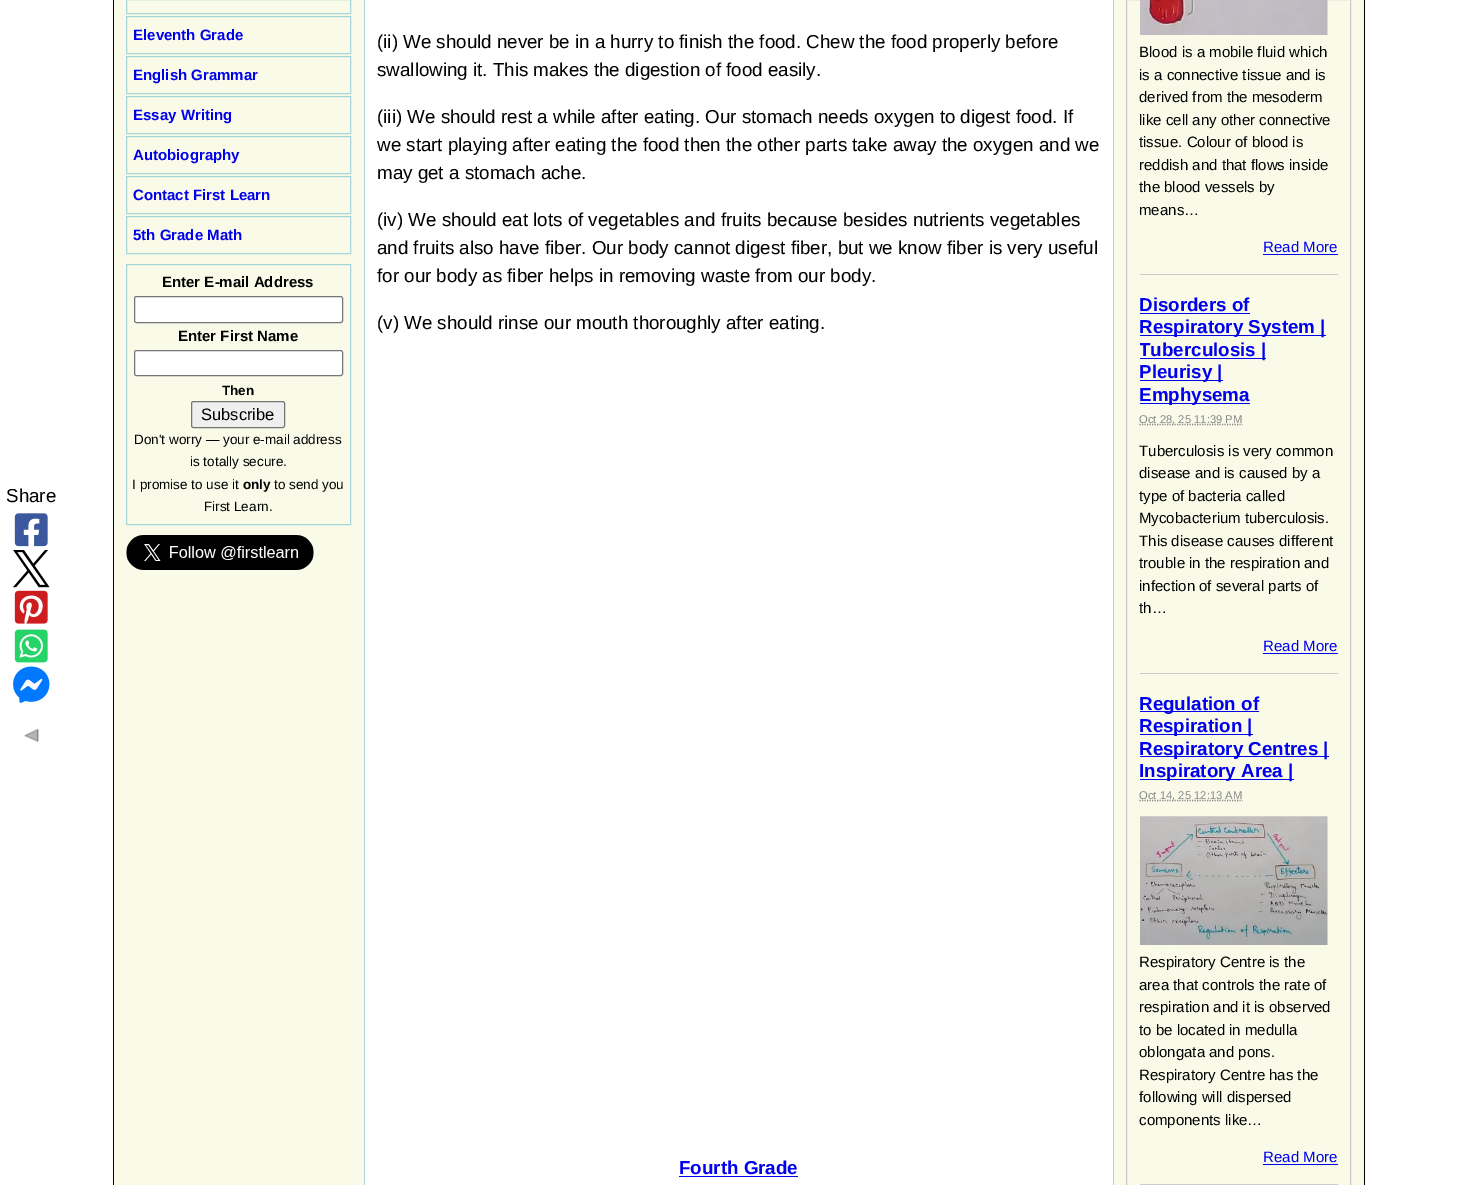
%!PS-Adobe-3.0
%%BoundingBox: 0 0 1476 1185
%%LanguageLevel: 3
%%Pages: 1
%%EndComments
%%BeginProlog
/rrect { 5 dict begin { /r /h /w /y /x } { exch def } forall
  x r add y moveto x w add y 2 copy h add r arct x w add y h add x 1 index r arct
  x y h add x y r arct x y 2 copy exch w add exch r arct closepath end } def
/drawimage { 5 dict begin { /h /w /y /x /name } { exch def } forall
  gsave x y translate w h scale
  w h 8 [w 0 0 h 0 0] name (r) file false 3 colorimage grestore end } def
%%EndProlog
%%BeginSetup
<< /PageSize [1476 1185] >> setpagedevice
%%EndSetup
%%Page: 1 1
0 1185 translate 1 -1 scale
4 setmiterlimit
1 setgray
0 0 1476 1185 rectfill
0.976 0.98 0.91 setrgbcolor
114 0 1250 1185 rectfill
0 setgray
1364 0 1 1185 rectfill
113 0 1 1185 rectfill
0.655 0.835 0.851 setrgbcolor
126.5 -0.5 224 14 rectstroke
126.5 16.5 224 37 rectstroke
126.5 56.5 224 37 rectstroke
126.5 96.5 224 37 rectstroke
126.5 136.5 224 37 rectstroke
126.5 176.5 224 37 rectstroke
126.5 216.5 224 37 rectstroke
126.5 264.5 224 260 rectstroke
1 setgray
134.5 296.5 208 26 2 rrect gsave fill grestore
0.463 setgray
stroke
1 setgray
134.5 350.5 208 25 2 rrect gsave fill grestore
0.463 setgray
stroke
0.937 setgray
191.5 401.5 93 26 2 rrect gsave fill grestore
0.463 setgray
stroke
(images/1.raw) 126 535 188 35 drawimage
1 setgray
365 0 748 1185 rectfill
0.655 0.835 0.851 setrgbcolor
1113 0 1 1185 rectfill
364 0 1 1185 rectfill
(images/2.raw) 14 513 34 34 drawimage
(images/3.raw) 13 550 37 38 drawimage
(images/4.raw) 14 590 34 34 drawimage
(images/5.raw) 14 629 34 34 drawimage
(images/6.raw) 13 666 37 37 drawimage
(images/7.raw) 24 728 15 14 drawimage
0 0 0.933 setrgbcolor
679 1176 119 1 rectfill
0.8 setgray
1126.5 -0.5 224 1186 rectstroke
(images/8.raw) 1140 0 188 35 drawimage
0 0 0.933 setrgbcolor
1263 254 75 1 rectfill
0.8 setgray
1140 274 198 1 rectfill
0 0 0.933 setrgbcolor
1140 313 110 1 rectfill
1140 335 186 1 rectfill
1140 358 126 1 rectfill
1140 380 83 1 rectfill
1140 403 110 1 rectfill
0.533 setgray
1.2 setlinewidth
[1.25 1.25] 0 setdash
newpath 1139.5 424.5 moveto 1242.5 424.5 lineto stroke
0 0 0.933 setrgbcolor
1263 653 75 1 rectfill
0.8 setgray
1140 673 198 1 rectfill
0 0 0.933 setrgbcolor
1140 711 119 1 rectfill
1140 734 113 1 rectfill
1140 756 189 1 rectfill
1140 779 154 1 rectfill
0.533 setgray
newpath 1139.5 800.5 moveto 1242.5 800.5 lineto stroke
(images/9.raw) 1140 816 188 129 drawimage
0 0 0.933 setrgbcolor
1263 1164 75 1 rectfill
0.8 setgray
1140 1184 198 1 rectfill
/LiberationSans-Bold [15 0 0 -15 0 0] selectfont
0 0 0.933 setrgbcolor
133 40 moveto (Eleventh Grade) show
133 80 moveto (English Grammar) show
133 120 moveto (Essay Writing) show
133 160 moveto (Autobiography) show
133 200 moveto (Contact First Learn) show
133 240 moveto (5th Grade Math) show
0 setgray
162 287 moveto (Enter E-mail Address) show
178 341 moveto (Enter First Name) show
/LiberationSans-Bold [13.5 0 0 -13.5 0 0] selectfont
222 395 moveto (Then) show
/LiberationSans-Regular [16.5 0 0 -16.5 0 0] selectfont
201 420 moveto (Subscribe) show
/LiberationSans-Regular [13.5 0 0 -13.5 0 0] selectfont
134 444 moveto (Don't worry — your e-mail address) show
190 466 moveto (is totally secure.) show
132 489 moveto (I promise to use it) show
/LiberationSans-Bold [13.5 0 0 -13.5 0 0] selectfont
243 489 moveto (only) show
/LiberationSans-Regular [13.5 0 0 -13.5 0 0] selectfont
274 489 moveto (to send you) show
204 511 moveto (First Learn.) show
/LiberationSans-Regular [18.75 0 0 -18.75 0 0] selectfont
377 48 moveto (\(ii\) We should never be in a hurry to finish the food. Chew the food properly before) show
377 76 moveto (swallowing it. This makes the digestion of food easily.) show
377 123 moveto (\(iii\) We should rest a while after eating. Our stomach needs oxygen to digest food. If) show
377 151 moveto (we start playing after eating the food then the other parts take away the oxygen and we) show
377 179 moveto (may get a stomach ache.) show
377 226 moveto (\(iv\) We should eat lots of vegetables and fruits because besides nutrients vegetables) show
377 254 moveto (and fruits also have fiber. Our body cannot digest fiber, but we know fiber is very useful) show
377 282 moveto (for our body as fiber helps in removing waste from our body.) show
377 329 moveto (\(v\) We should rinse our mouth thoroughly after eating.) show
6 502 moveto (Share) show
/LiberationSans-Bold [18.75 0 0 -18.75 0 0] selectfont
0 0 0.933 setrgbcolor
679 1174 moveto (Fourth Grade) show
/LiberationSans-Regular [15 0 0 -15 0 0] selectfont
0 setgray
1139 57 moveto (Blood is a mobile fluid which) show
1139 80 moveto (is a connective tissue and is) show
1139 102 moveto (derived from the mesoderm) show
1139 125 moveto (like cell any other connective) show
1139 147 moveto (tissue. Colour of blood is) show
1139 170 moveto (reddish and that flows inside) show
1139 192 moveto (the blood vessels by) show
1139 215 moveto (means…) show
0 0 0.933 setrgbcolor
1263 252 moveto (Read More) show
/LiberationSans-Bold [18.75 0 0 -18.75 0 0] selectfont
1139 311 moveto (Disorders of) show
1139 333 moveto (Respiratory System |) show
gsave
1140 0 198 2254 rectclip
1139 356 moveto (Tuberculosis |) show
grestore
1139 378 moveto (Pleurisy |) show
1139 401 moveto (Emphysema) show
/LiberationSans-Regular [11.25 0 0 -11.25 0 0] selectfont
0.533 setgray
1139 423 moveto (Oct 28, 25 11:39 PM) show
/LiberationSans-Regular [15 0 0 -15 0 0] selectfont
0 setgray
1139 456 moveto (Tuberculosis is very common) show
1139 478 moveto (disease and is caused by a) show
1139 501 moveto (type of bacteria called) show
1139 523 moveto (Mycobacterium tuberculosis.) show
1139 546 moveto (This disease causes different) show
1139 568 moveto (trouble in the respiration and) show
1139 591 moveto (infection of several parts of) show
1139 613 moveto (th…) show
0 0 0.933 setrgbcolor
1263 651 moveto (Read More) show
/LiberationSans-Bold [18.75 0 0 -18.75 0 0] selectfont
1139 710 moveto (Regulation of) show
1139 732 moveto (Respiration |) show
1139 755 moveto (Respiratory Centres |) show
1139 777 moveto (Inspiratory Area |) show
/LiberationSans-Regular [11.25 0 0 -11.25 0 0] selectfont
0.533 setgray
1139 799 moveto (Oct 14, 25 12:13 AM) show
/LiberationSans-Regular [15 0 0 -15 0 0] selectfont
0 setgray
1139 967 moveto (Respiratory Centre is the) show
1139 990 moveto (area that controls the rate of) show
1139 1012 moveto (respiration and it is observed) show
1139 1035 moveto (to be located in medulla) show
1139 1057 moveto (oblongata and pons.) show
1139 1080 moveto (Respiratory Centre has the) show
1139 1102 moveto (following will dispersed) show
1139 1125 moveto (components like…) show
0 0 0.933 setrgbcolor
1263 1162 moveto (Read More) show
showpage
%%EOF
